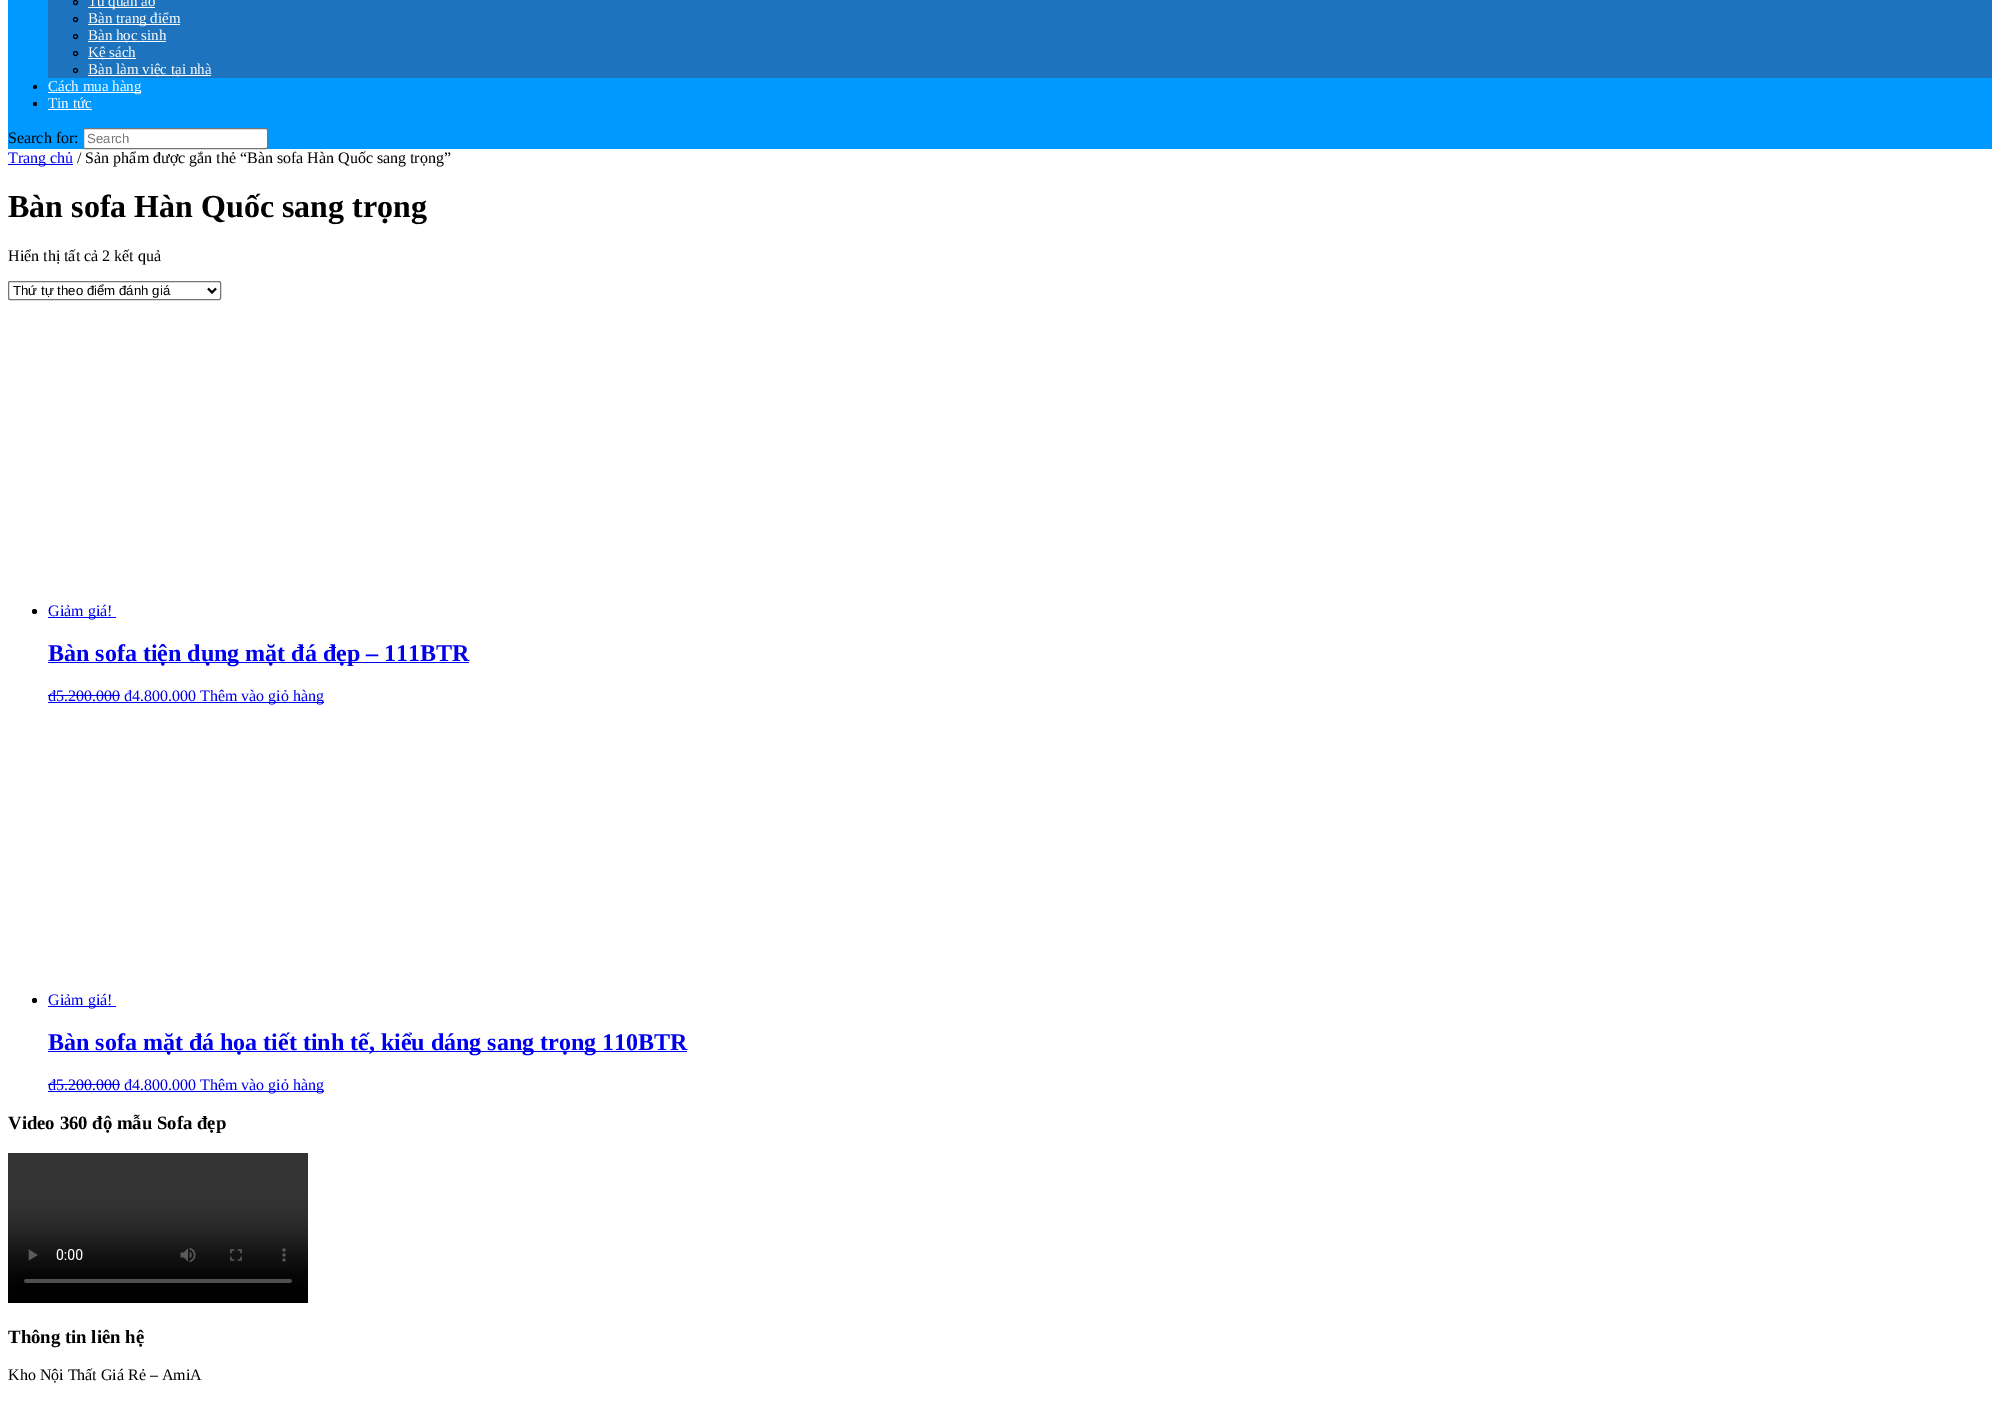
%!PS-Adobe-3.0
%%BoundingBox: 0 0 2000 1404
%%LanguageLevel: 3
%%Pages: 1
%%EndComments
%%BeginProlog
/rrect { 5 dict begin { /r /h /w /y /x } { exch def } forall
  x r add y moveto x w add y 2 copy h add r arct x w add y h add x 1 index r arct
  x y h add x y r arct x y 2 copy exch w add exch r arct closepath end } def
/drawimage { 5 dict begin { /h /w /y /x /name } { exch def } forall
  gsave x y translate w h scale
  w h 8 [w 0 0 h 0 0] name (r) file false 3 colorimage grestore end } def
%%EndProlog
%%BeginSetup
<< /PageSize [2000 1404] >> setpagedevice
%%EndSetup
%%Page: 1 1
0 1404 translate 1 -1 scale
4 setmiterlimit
1 setgray
0 0 2000 1404 rectfill
0 0.6 1 setrgbcolor
8 0 1984 149 rectfill
0.118 0.451 0.745 setrgbcolor
48 0 1944 78 rectfill
0 setgray
newpath 75.5 2.5 2 0 360 arc closepath stroke
1 setgray
88 7 67 1 rectfill
0 setgray
newpath 75.5 19.5 2 0 360 arc closepath stroke
1 setgray
88 24 92 1 rectfill
0 setgray
newpath 75.5 36.5 2 0 360 arc closepath stroke
1 setgray
88 41 78 1 rectfill
0 setgray
newpath 75.5 53.5 2 0 360 arc closepath stroke
1 setgray
88 58 48 1 rectfill
0 setgray
newpath 75.5 70.5 2 0 360 arc closepath stroke
1 setgray
88 75 123 1 rectfill
0 setgray
newpath 35 87 2 0 360 arc closepath fill
1 setgray
48 92 93 1 rectfill
0 setgray
newpath 35 104 2 0 360 arc closepath fill
1 setgray
48 109 44 1 rectfill
83.5 128.5 184 20 1.5 rrect gsave fill grestore
0.463 setgray
stroke
0 0 0.933 setrgbcolor
8 164 65 1 rectfill
0.463 setgray
8.5 281.5 212 18 1.5 rrect stroke
0 setgray
2 setlinewidth
newpath 208 288.5 moveto 212 292.5 lineto 216 288.5 lineto stroke
newpath 34.5 611.5 2.5 0 360 arc closepath fill
0 0 0.933 setrgbcolor
48 617 68 1 rectfill
48 662 421 1 rectfill
48 702 8 1 rectfill
48 695 72 1 rectfill
56 702 76 1 rectfill
132 702 192 1 rectfill
0 setgray
newpath 34.5 1000.5 2.5 0 360 arc closepath fill
0 0 0.933 setrgbcolor
48 1006 68 1 rectfill
48 1051 639 1 rectfill
48 1091 8 1 rectfill
48 1084 72 1 rectfill
56 1091 76 1 rectfill
132 1091 192 1 rectfill
(images/1.raw) 8 1153 300 150 drawimage
/LiberationSerif-Regular [15 0 0 -15 0 0] selectfont
1 setgray
88 6 moveto (Tủ quần áo) show
88 23 moveto (Bàn trang điểm) show
88 40 moveto (Bàn học sinh) show
88 57 moveto (Kệ sách) show
88 74 moveto (Bàn làm việc tại nhà) show
48 91 moveto (Cách mua hàng) show
48 108 moveto (Tin tức) show
/LiberationSerif-Regular [16 0 0 -16 0 0] selectfont
0 setgray
8 143 moveto (Search for:) show
/LiberationSans-Regular [13.25 0 0 -13.25 0 0] selectfont
0.459 setgray
87 143 moveto (Search) show
/LiberationSerif-Regular [16 0 0 -16 0 0] selectfont
0 0 0.933 setrgbcolor
8 163 moveto (Trang chủ) show
0 setgray
77 163 moveto (/ Sản phẩm được gắn thẻ “Bàn sofa Hàn Quốc sang trọng”) show
/LiberationSerif-Bold [32 0 0 -32 0 0] selectfont
8 217 moveto (Bàn sofa Hàn Quốc sang trọng) show
/LiberationSerif-Regular [16 0 0 -16 0 0] selectfont
8 261 moveto (Hiển thị tất cả 2 kết quả) show
/LiberationSans-Regular [13.25 0 0 -13.25 0 0] selectfont
13 295 moveto (Thứ tự theo điểm đánh giá) show
/LiberationSerif-Regular [16 0 0 -16 0 0] selectfont
0 0 0.933 setrgbcolor
48 616 moveto (Giảm giá!) show
/LiberationSerif-Bold [24 0 0 -24 0 0] selectfont
48 661 moveto (Bàn sofa tiện dụng mặt đá đẹp – 111BTR) show
/LiberationSerif-Regular [16 0 0 -16 0 0] selectfont
48 701 moveto (₫5.200.000) show
124 701 moveto (₫4.800.000) show
200 701 moveto (Thêm vào giỏ hàng) show
48 1005 moveto (Giảm giá!) show
/LiberationSerif-Bold [24 0 0 -24 0 0] selectfont
48 1050 moveto (Bàn sofa mặt đá họa tiết tinh tế, kiểu dáng sang trọng 110BTR) show
/LiberationSerif-Regular [16 0 0 -16 0 0] selectfont
48 1090 moveto (₫5.200.000) show
124 1090 moveto (₫4.800.000) show
200 1090 moveto (Thêm vào giỏ hàng) show
/LiberationSerif-Bold [18.75 0 0 -18.75 0 0] selectfont
0 setgray
8 1129 moveto (Video 360 độ mẫu Sofa đẹp) show
8 1343 moveto (Thông tin liên hệ) show
/LiberationSerif-Regular [16 0 0 -16 0 0] selectfont
8 1380 moveto (Kho Nội Thất Giá Rẻ – AmiA) show
showpage
%%EOF
